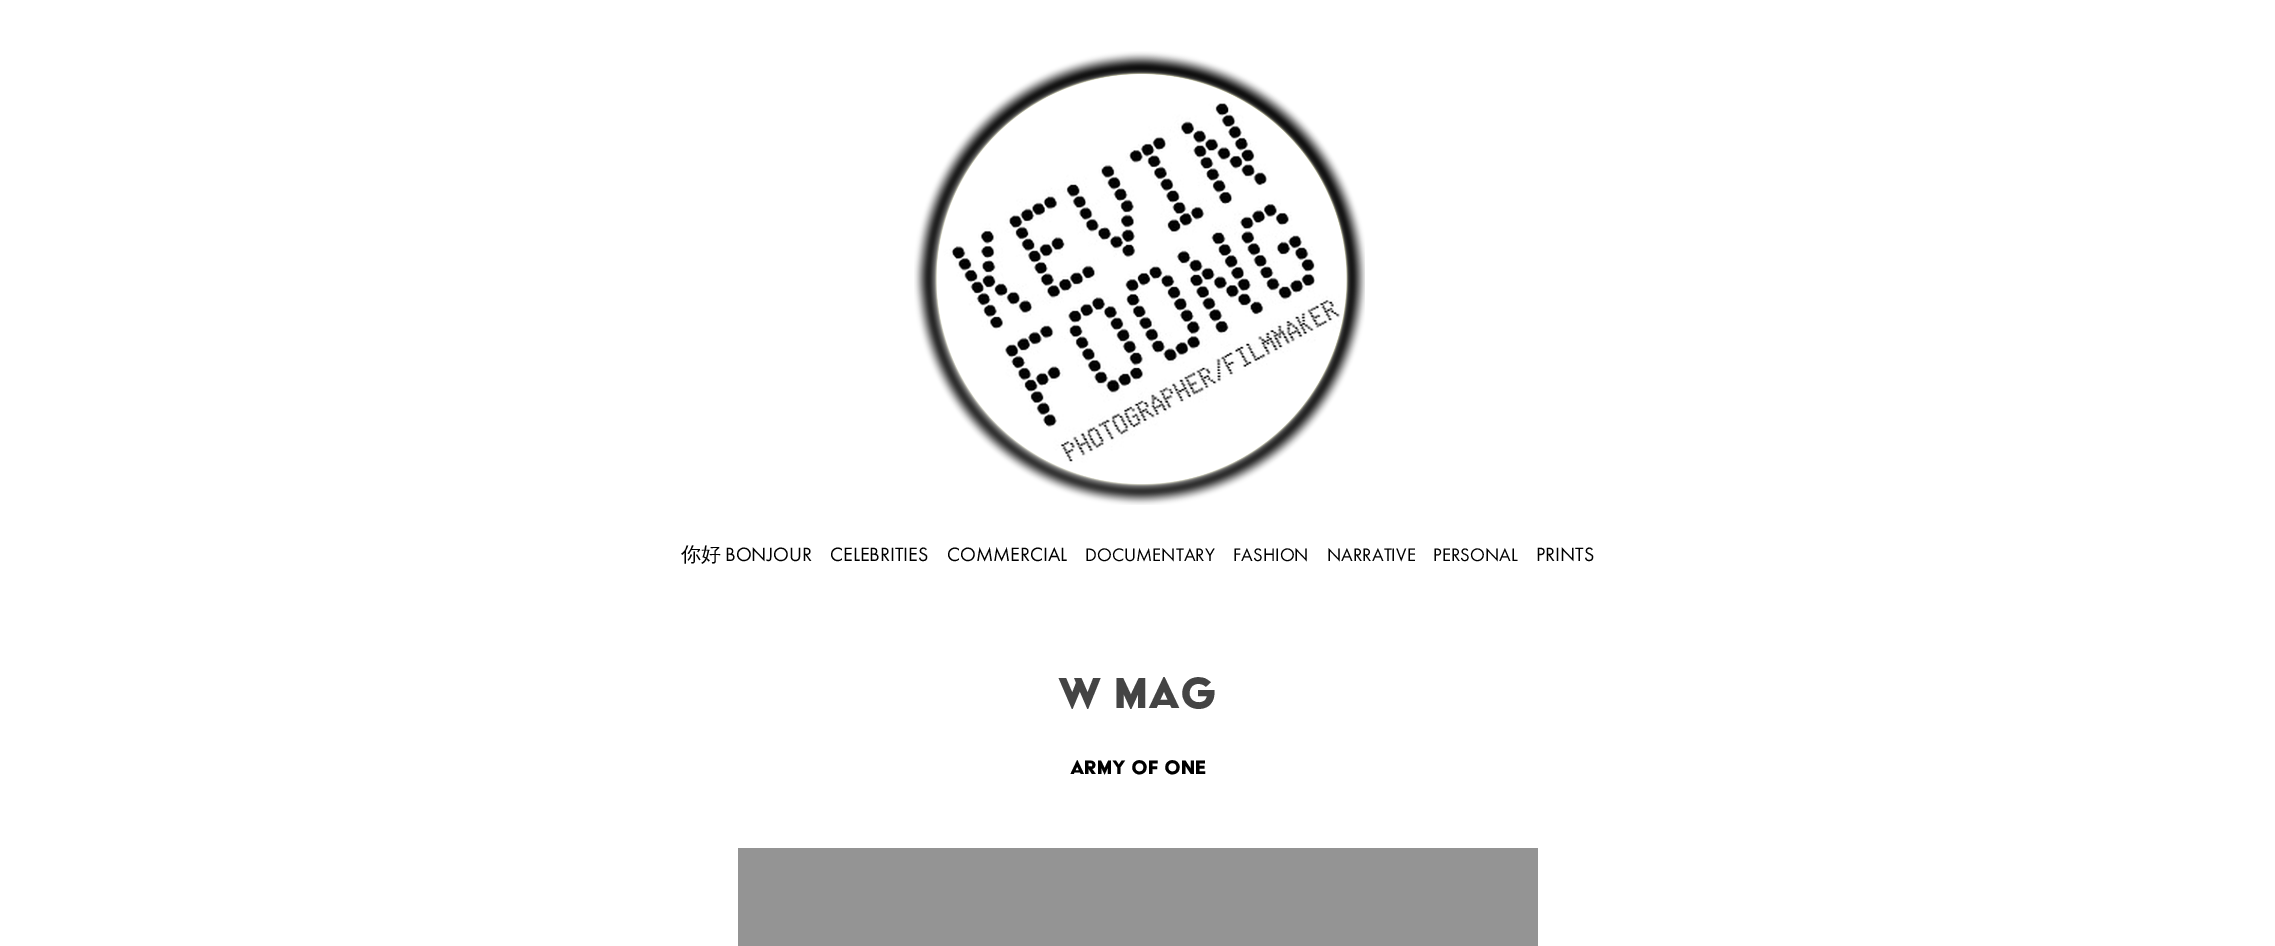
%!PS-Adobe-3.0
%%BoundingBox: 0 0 2275 946
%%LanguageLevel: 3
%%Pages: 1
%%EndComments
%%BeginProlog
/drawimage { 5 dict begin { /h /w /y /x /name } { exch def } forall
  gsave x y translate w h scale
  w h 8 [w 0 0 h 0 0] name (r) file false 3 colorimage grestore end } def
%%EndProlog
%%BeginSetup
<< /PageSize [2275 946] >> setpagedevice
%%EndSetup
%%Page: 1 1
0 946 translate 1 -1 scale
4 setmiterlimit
1 setgray
0 0 2275 946 rectfill
(images/1.raw) 914 51 451 454 drawimage
0.58 setgray
738 848 800 98 rectfill
/WenQuanYiZenHei-Medium [20 0 0 -20 0 0] selectfont
0 setgray
681 561 moveto (你好) show
/FuturaPT-Regular [20 0 0 -20 0 0] selectfont
725 561 moveto (BONJOUR) show
830 561 moveto (CELEBRITIES) show
947 561 moveto (COMMERCIAL) show
/FuturaPT-Regular [18.75 0 0 -18.75 0 0] selectfont
1085 561 moveto (DOCUMENTARY) show
1233 561 moveto (FASHION) show
1327 561 moveto (NARRATIVE) show
1433 561 moveto (PERSONAL) show
/FuturaPT-Regular [20 0 0 -20 0 0] selectfont
1536 561 moveto (PRINTS) show
/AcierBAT-Regular [50 0 0 -50 0 0] selectfont
0.267 setgray
1058 708 moveto (W Mag) show
/AcierBAT-Regular [22.5 0 0 -22.5 0 0] selectfont
0 setgray
1070 774 moveto (ARMY OF ONE) show
showpage
%%EOF
